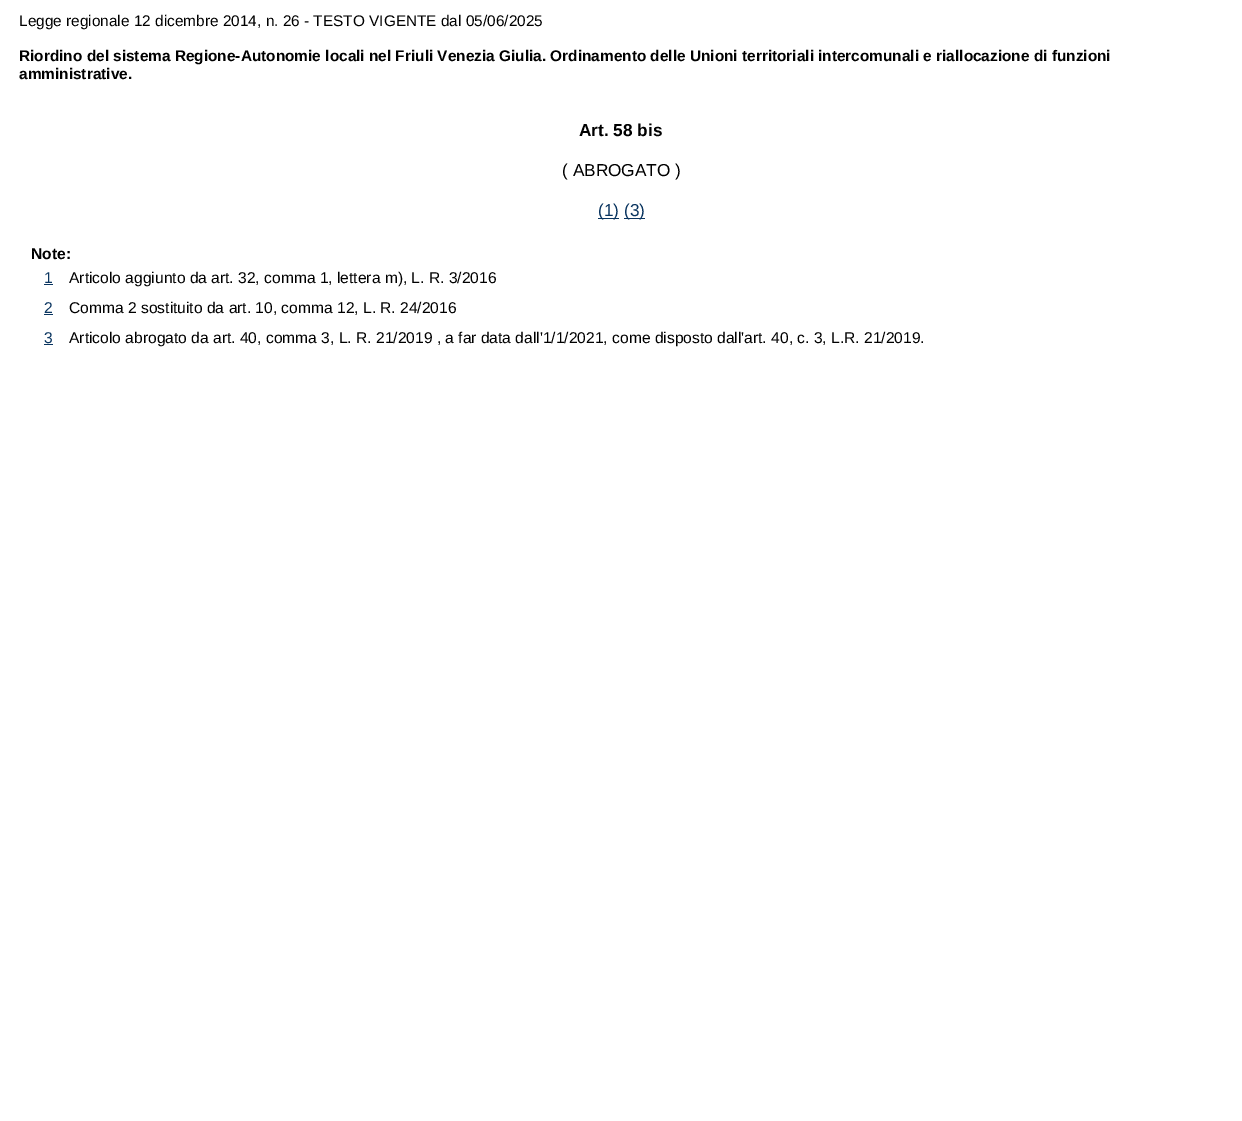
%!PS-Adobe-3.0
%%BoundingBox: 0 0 1242 1121
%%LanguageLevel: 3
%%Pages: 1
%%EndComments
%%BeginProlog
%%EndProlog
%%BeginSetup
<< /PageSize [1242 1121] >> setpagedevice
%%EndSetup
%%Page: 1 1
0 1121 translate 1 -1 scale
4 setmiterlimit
1 setgray
0 0 1242 1121 rectfill
0.039 0.208 0.376 setrgbcolor
598 218 21 1 rectfill
624 218 21 1 rectfill
44 284 9 1 rectfill
44 314 9 1 rectfill
44 344 9 1 rectfill
/LiberationSans-Regular [15.4 0 0 -15.4 0 0] selectfont
0 setgray
19 26 moveto (Legge regionale 12 dicembre 2014, n. 26 - TESTO VIGENTE dal 05/06/2025) show
/LiberationSans-Bold [15.4 0 0 -15.4 0 0] selectfont
19 61 moveto (Riordino del sistema Regione-Autonomie locali nel Friuli Venezia Giulia. Ordinamento delle Unioni territoriali intercomunali e riallocazione di funzioni) show
19 79 moveto (amministrative.) show
/LiberationSans-Bold [17.25 0 0 -17.25 0 0] selectfont
579 136 moveto (Art. 58 bis) show
/LiberationSans-Regular [17.25 0 0 -17.25 0 0] selectfont
562 176 moveto (\( ABROGATO \)) show
0.039 0.208 0.376 setrgbcolor
598 216 moveto (\(1\)) show
624 216 moveto (\(3\)) show
/LiberationSans-Bold [15.6 0 0 -15.6 0 0] selectfont
0 setgray
31 259 moveto (Note:) show
/LiberationSans-Regular [15.6 0 0 -15.6 0 0] selectfont
0.039 0.208 0.376 setrgbcolor
44 283 moveto (1) show
0 setgray
69 283 moveto (Articolo aggiunto da art. 32, comma 1, lettera m\), L. R. 3/2016) show
0.039 0.208 0.376 setrgbcolor
44 313 moveto (2) show
0 setgray
69 313 moveto (Comma 2 sostituito da art. 10, comma 12, L. R. 24/2016) show
0.039 0.208 0.376 setrgbcolor
44 343 moveto (3) show
0 setgray
69 343 moveto (Articolo abrogato da art. 40, comma 3, L. R. 21/2019 , a far data dall'1/1/2021, come disposto dall'art. 40, c. 3, L.R. 21/2019.) show
showpage
%%EOF
